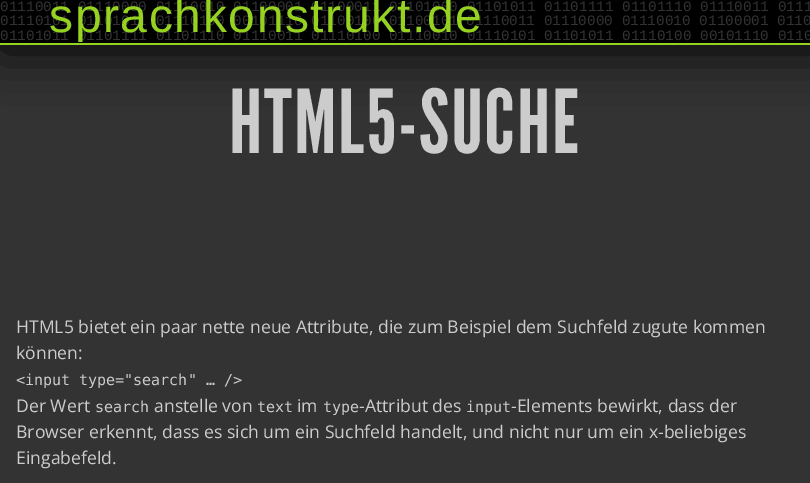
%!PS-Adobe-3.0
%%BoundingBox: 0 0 810 483
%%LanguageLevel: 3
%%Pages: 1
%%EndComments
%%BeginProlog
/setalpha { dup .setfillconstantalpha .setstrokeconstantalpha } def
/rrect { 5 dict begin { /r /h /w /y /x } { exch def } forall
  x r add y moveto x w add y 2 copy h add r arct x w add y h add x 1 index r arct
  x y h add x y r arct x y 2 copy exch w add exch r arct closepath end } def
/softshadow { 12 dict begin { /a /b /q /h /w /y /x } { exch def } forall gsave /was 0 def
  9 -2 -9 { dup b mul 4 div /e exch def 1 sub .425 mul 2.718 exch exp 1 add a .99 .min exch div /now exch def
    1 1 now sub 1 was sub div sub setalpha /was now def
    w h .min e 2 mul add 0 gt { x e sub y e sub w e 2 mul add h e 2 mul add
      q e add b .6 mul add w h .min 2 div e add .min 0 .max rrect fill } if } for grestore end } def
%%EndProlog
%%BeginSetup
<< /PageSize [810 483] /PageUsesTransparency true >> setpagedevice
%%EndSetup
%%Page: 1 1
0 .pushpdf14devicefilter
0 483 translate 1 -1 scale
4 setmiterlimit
0.2 setgray
0 0 810 483 rectfill
0 setgray
0 5 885 45 0 25 1 softshadow
0 0 810 43 rectfill
0.588 0.827 0.129 setrgbcolor
0 43 810 2 rectfill
/LiberationMono-Regular [14.4 0 0 -14.4 0 0] selectfont
0.2 setgray
0 11 moveto (01110011 01110000 01110010 01100001 01100011 01101000 01101011 01101111 01101110 01110011 0111) show
0 25 moveto (01110101 01101011 01110100 00101110 01100100 01100101) show
466 25 moveto (01110011 01110000 01110010 01100001 0110) show
0 40 moveto (01101011 01101111 01101110 01110011 01110100 01110010 01110101 01101011 01110100 00101110 0110) show
/LiberationSans-Regular [48 0 0 -48 0 0] selectfont
0.588 0.827 0.129 setrgbcolor
49 32 moveto 1.6 0 (sprachkonstrukt.de) ashow
/LeagueGothic-Regular [88 0 0 -88 0 0] selectfont
0.8 setgray
229 153 moveto 1.75 0 (HTML5-SUCHE) ashow
/OpenSans-Regular [17.6 0 0 -17.6 0 0] selectfont
16 333 moveto (HTML5 bietet ein paar nette neue Attribute, die zum Beispiel dem Suchfeld zugute kommen) show
16 359 moveto (können:) show
/DejaVuSansMono-Regular [15 0 0 -15 0 0] selectfont
16 385 moveto (<input type="search" … />) show
/OpenSans-Regular [17.6 0 0 -17.6 0 0] selectfont
16 412 moveto (Der Wert) show
/DejaVuSansMono-Regular [15 0 0 -15 0 0] selectfont
95 412 moveto (search) show
/OpenSans-Regular [17.6 0 0 -17.6 0 0] selectfont
154 412 moveto (anstelle von) show
/DejaVuSansMono-Regular [15 0 0 -15 0 0] selectfont
257 412 moveto (text) show
/OpenSans-Regular [17.6 0 0 -17.6 0 0] selectfont
297 412 moveto (im) show
/DejaVuSansMono-Regular [15 0 0 -15 0 0] selectfont
323 412 moveto (type) show
/OpenSans-Regular [17.6 0 0 -17.6 0 0] selectfont
359 412 moveto (-Attribut des) show
/DejaVuSansMono-Regular [15 0 0 -15 0 0] selectfont
466 412 moveto (input) show
/OpenSans-Regular [17.6 0 0 -17.6 0 0] selectfont
511 412 moveto (-Elements bewirkt, dass der) show
16 438 moveto (Browser erkennt, dass es sich um ein Suchfeld handelt, und nicht nur um ein x-beliebiges) show
16 464 moveto (Eingabefeld.) show
.poppdf14devicefilter showpage
%%EOF
